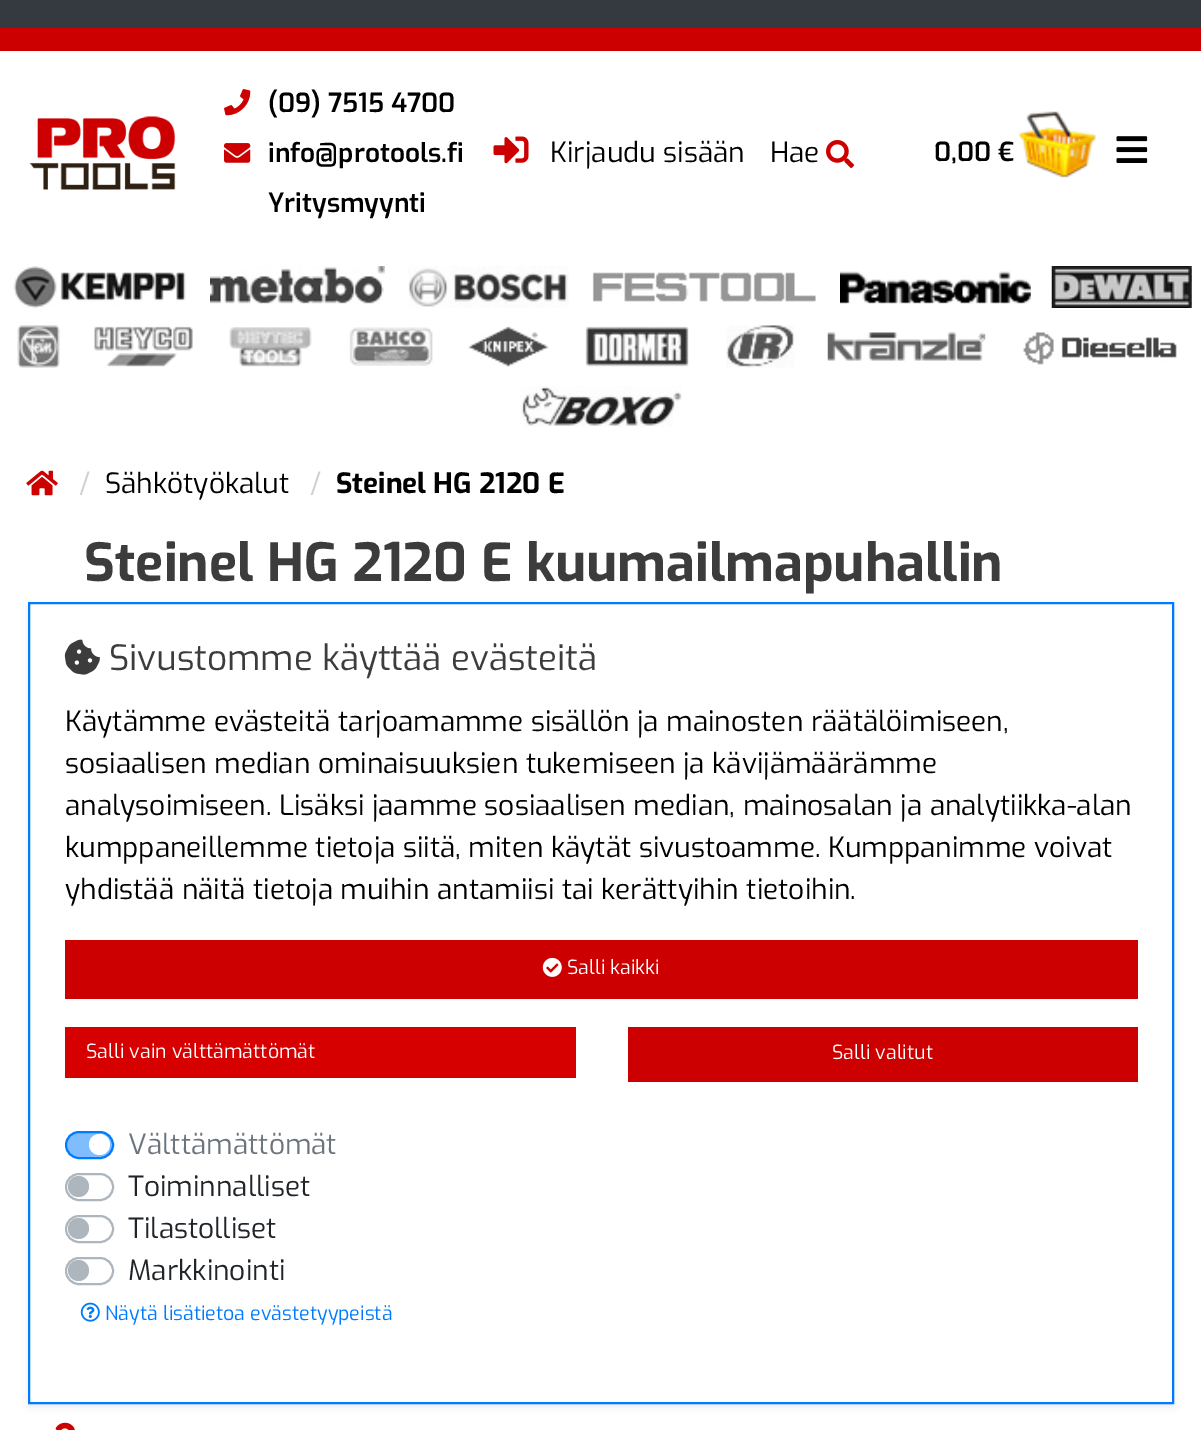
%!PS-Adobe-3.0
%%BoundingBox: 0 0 1201 1430
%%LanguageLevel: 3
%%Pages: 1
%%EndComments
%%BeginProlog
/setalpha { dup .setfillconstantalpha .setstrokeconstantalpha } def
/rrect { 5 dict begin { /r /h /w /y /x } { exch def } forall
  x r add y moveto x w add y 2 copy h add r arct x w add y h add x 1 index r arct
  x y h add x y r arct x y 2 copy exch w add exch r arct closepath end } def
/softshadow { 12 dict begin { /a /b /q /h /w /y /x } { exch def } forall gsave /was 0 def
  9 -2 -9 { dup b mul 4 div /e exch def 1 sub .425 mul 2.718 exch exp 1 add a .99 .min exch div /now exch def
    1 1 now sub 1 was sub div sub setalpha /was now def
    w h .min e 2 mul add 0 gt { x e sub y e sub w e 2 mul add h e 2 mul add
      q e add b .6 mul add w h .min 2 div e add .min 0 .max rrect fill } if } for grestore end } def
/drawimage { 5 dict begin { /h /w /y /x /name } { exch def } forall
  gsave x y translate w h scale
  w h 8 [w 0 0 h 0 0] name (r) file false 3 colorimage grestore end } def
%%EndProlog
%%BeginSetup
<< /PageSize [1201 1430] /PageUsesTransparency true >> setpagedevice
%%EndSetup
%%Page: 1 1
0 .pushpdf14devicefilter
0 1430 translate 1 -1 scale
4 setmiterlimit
1 setgray
0 0 1201 1430 rectfill
0.204 0.227 0.251 setrgbcolor
0 0 1201 28 rectfill
0.8 0 0 setrgbcolor
0 28 1201 23 rectfill
(images/1.raw) 29 116 147 74 drawimage
(images/2.raw) 224 89 27 27 drawimage
(images/3.raw) 224 143 27 20 drawimage
(images/4.raw) 493 136 36 28 drawimage
(images/5.raw) 826 140 28 28 drawimage
(images/6.raw) 1018 111 78 67 drawimage
(images/7.raw) 1116 136 32 27 drawimage
(images/8.raw) 13 266 173 42 drawimage
(images/9.raw) 210 266 175 38 drawimage
(images/10.raw) 408 266 161 42 drawimage
(images/11.raw) 592 272 224 30 drawimage
(images/12.raw) 840 271 191 33 drawimage
(images/13.raw) 1051 266 141 42 drawimage
(images/14.raw) 17 325 43 43 drawimage
(images/15.raw) 94 326 99 41 drawimage
(images/16.raw) 229 327 83 40 drawimage
(images/17.raw) 349 327 84 39 drawimage
(images/18.raw) 468 326 81 41 drawimage
(images/19.raw) 585 326 104 41 drawimage
(images/20.raw) 726 325 69 43 drawimage
(images/21.raw) 827 332 159 29 drawimage
(images/22.raw) 1023 332 154 33 drawimage
(images/23.raw) 520 386 162 41 drawimage
(images/24.raw) 26 470 32 26 drawimage
(images/25.raw) 55 1422 20 8 drawimage
0 setgray
28 606 1146 801 0 3.5 0.07 softshadow
1 setgray
newpath 29 603 moveto 1173 603 lineto 1173 1403 lineto 29 1403 lineto closepath gsave fill grestore
0 0.482 1 setrgbcolor
2 setlinewidth
stroke
(images/26.raw) 64 639 36 36 drawimage
0.8 0 0 setrgbcolor
65 940 1073 59 rectfill
(images/27.raw) 542 957 20 20 drawimage
0.843 0 0 setrgbcolor
65 1027 511 51 rectfill
0.8 0 0 setrgbcolor
628 1027 510 55 rectfill
0.502 0.741 1 setrgbcolor
66 1132 47 26 13 rrect gsave fill grestore
0 0.482 1 setrgbcolor
stroke
1 setgray
newpath 99.5 1144.5 10.5 0 360 arc closepath fill
0.678 0.71 0.741 setrgbcolor
66 1174 47 26 13 rrect stroke
newpath 78.5 1186.5 10.5 0 360 arc closepath fill
66 1216 47 26 13 rrect stroke
newpath 78.5 1228.5 10.5 0 360 arc closepath fill
66 1258 47 26 13 rrect stroke
newpath 78.5 1270.5 10.5 0 360 arc closepath fill
(images/28.raw) 80 1302 20 20 drawimage
/Exo-SemiBold [26.25 0 0 -26.25 0 0] selectfont
0 setgray
268 112 moveto (\(09\) 7515 4700) show
268 162 moveto (info@protools.fi) show
268 212 moveto (Yritysmyynti) show
/Exo-Regular [28 0 0 -28 0 0] selectfont
550 162 moveto (Kirjaudu sisään) show
770 162 moveto (Hae) show
/Exo-SemiBold [26.25 0 0 -26.25 0 0] selectfont
934 161 moveto (0,00 €) show
/Exo-Regular [28 0 0 -28 0 0] selectfont
0.816 setgray
79 493 moveto (/) show
0 setgray
105 493 moveto (Sähkötyökalut) show
0.816 setgray
310 493 moveto (/) show
/Exo-Bold [28 0 0 -28 0 0] selectfont
0 setgray
336 493 moveto (Steinel HG 2120 E) show
/Exo-Bold [52.5 0 0 -52.5 0 0] selectfont
0.235 setgray
84 581 moveto (Steinel HG 2120 E kuumailmapuhallin) show
/Exo-Regular [35 0 0 -35 0 0] selectfont
109 670 moveto (Sivustomme käyttää evästeitä) show
/Exo-Regular [28 0 0 -28 0 0] selectfont
0 setgray
65 731 moveto (Käytämme evästeitä tarjoamamme sisällön ja mainosten räätälöimiseen,) show
65 773 moveto (sosiaalisen median ominaisuuksien tukemiseen ja kävijämäärämme) show
65 815 moveto (analysoimiseen. Lisäksi jaamme sosiaalisen median, mainosalan ja analytiikka-alan) show
65 857 moveto (kumppaneillemme tietoja siitä, miten käytät sivustoamme. Kumppanimme voivat) show
65 899 moveto (yhdistää näitä tietoja muihin antamiisi tai kerättyihin tietoihin.) show
/Exo-Regular [19.6 0 0 -19.6 0 0] selectfont
1 setgray
567 974 moveto (Salli kaikki) show
86 1058 moveto (Salli vain välttämättömät) show
832 1059 moveto (Salli valitut) show
/Exo-Regular [28 0 0 -28 0 0] selectfont
0.424 0.459 0.49 setrgbcolor
128 1154 moveto (Välttämättömät) show
0.129 0.145 0.161 setrgbcolor
128 1196 moveto (Toiminnalliset) show
128 1238 moveto (Tilastolliset) show
128 1280 moveto (Markkinointi) show
/Exo-Regular [19.6 0 0 -19.6 0 0] selectfont
0 0.482 1 setrgbcolor
105 1320 moveto (Näytä lisätietoa evästetyypeistä) show
.poppdf14devicefilter showpage
%%EOF
